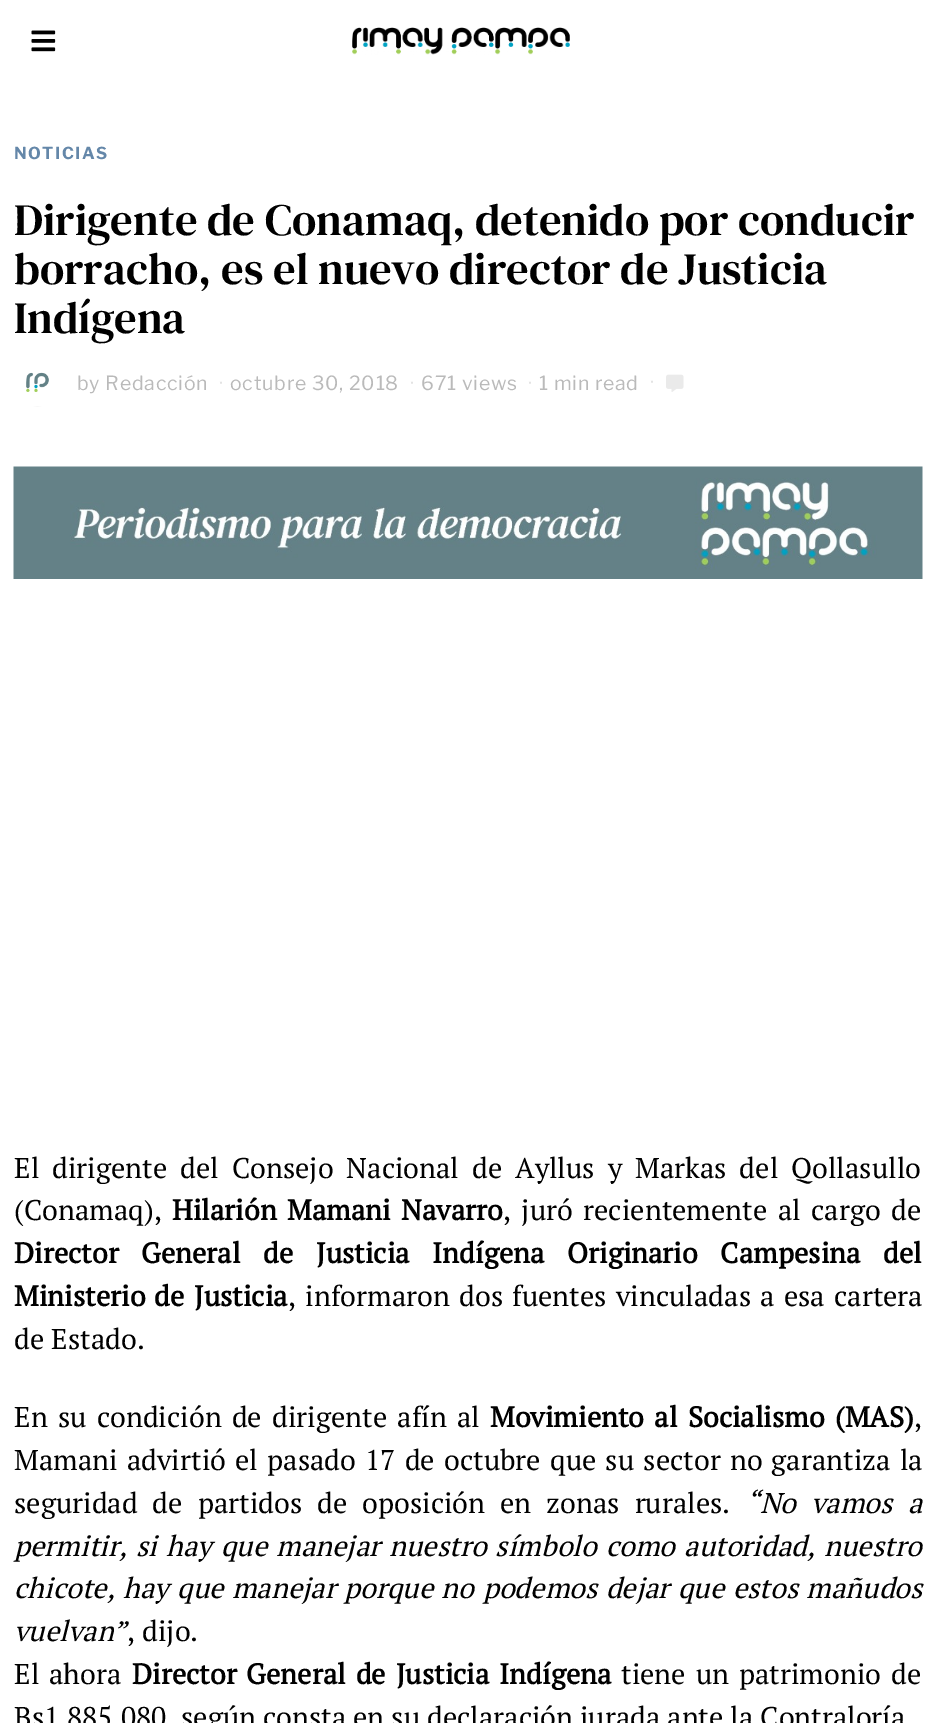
%!PS-Adobe-3.0
%%BoundingBox: 0 0 935 1723
%%LanguageLevel: 3
%%Pages: 1
%%EndComments
%%BeginProlog
/drawimage { 5 dict begin { /h /w /y /x /name } { exch def } forall
  gsave x y translate w h scale
  w h 8 [w 0 0 h 0 0] name (r) file false 3 colorimage grestore end } def
%%EndProlog
%%BeginSetup
<< /PageSize [935 1723] >> setpagedevice
%%EndSetup
%%Page: 1 1
0 1723 translate 1 -1 scale
4 setmiterlimit
1 setgray
0 0 935 1723 rectfill
(images/1.raw) 31 30 25 22 drawimage
(images/2.raw) 352 27 218 28 drawimage
(images/3.raw) 26 372 23 35 drawimage
(images/4.raw) 666 374 18 18 drawimage
(images/5.raw) 13 466 910 113 drawimage
/LibreFranklin-Bold [16.5 0 0 -16.5 0 0] selectfont
0.392 0.529 0.663 setrgbcolor
14 159 moveto 1.5 0 (NOTICIAS) ashow
/DMSerifText-Regular [44.75 0 0 -44.75 0 0] selectfont
0 setgray
14 235 moveto (Dirigente de Conamaq, detenido por conducir) show
14 284 moveto (borracho, es el nuevo director de Justicia) show
14 333 moveto (Indígena) show
/LibreFranklin-Regular [19.5 0 0 -19.5 0 0] selectfont
0.729 setgray
77 390 moveto 0.75 0 (by Redacción) ashow
0.89 setgray
219 390 moveto 0.75 0 (·) ashow
0.729 setgray
230 390 moveto 0.75 0 (octubre 30, 2018) ashow
0.89 setgray
410 390 moveto 0.75 0 (·) ashow
0.729 setgray
421 390 moveto 0.75 0 (671 views) ashow
0.89 setgray
528 390 moveto 0.75 0 (·) ashow
0.729 setgray
539 390 moveto 0.75 0 (1 min read) ashow
0.89 setgray
650 389 moveto 0.75 0 (·) ashow
/PTSerif-Regular [28.5 0 0 -28.5 0 0] selectfont
0 setgray
14 1178 moveto 6 0 32 (El dirigente del Consejo Nacional de Ayllus y Markas del Qollasullo) widthshow
14 1220 moveto (\(Conamaq\),) show
/PTSerif-Bold [28.5 0 0 -28.5 0 0] selectfont
172 1220 moveto 3.5 0 32 (Hilarión Mamani Navarro) widthshow
/PTSerif-Regular [28.5 0 0 -28.5 0 0] selectfont
503 1220 moveto 3.5 0 32 (, juró recientemente al cargo de) widthshow
/PTSerif-Bold [28.5 0 0 -28.5 0 0] selectfont
14 1263 moveto 15.75 0 32 (Director General de Justicia Indígena Originario Campesina del) widthshow
14 1306 moveto 2.25 0 32 (Ministerio de Justicia) widthshow
/PTSerif-Regular [28.5 0 0 -28.5 0 0] selectfont
288 1306 moveto 2.25 0 32 (, informaron dos fuentes vinculadas a esa cartera) widthshow
14 1349 moveto (de Estado.) show
14 1427 moveto 3.25 0 32 (En su condición de dirigente afín al) widthshow
/PTSerif-Bold [28.5 0 0 -28.5 0 0] selectfont
490 1427 moveto 3.25 0 32 (Movimiento al Socialismo \(MAS\)) widthshow
/PTSerif-Regular [28.5 0 0 -28.5 0 0] selectfont
914 1427 moveto (,) show
14 1470 moveto 2.25 0 32 (Mamani advirtió el pasado 17 de octubre que su sector no garantiza la) widthshow
14 1513 moveto 8 0 32 (seguridad de partidos de oposición en zonas rurales.) widthshow
/PTSerif-Italic [28.5 0 0 -28.5 0 0] selectfont
746 1513 moveto 8 0 32 (“No vamos a) widthshow
14 1556 moveto 2.25 0 32 (permitir, si hay que manejar nuestro símbolo como autoridad, nuestro) widthshow
14 1598 moveto 1.5 0 32 (chicote, hay que manejar porque no podemos dejar que estos mañudos) widthshow
14 1641 moveto (vuelvan”) show
/PTSerif-Regular [28.5 0 0 -28.5 0 0] selectfont
127 1641 moveto (, dijo.) show
14 1684 moveto 3 0 32 (El ahora) widthshow
/PTSerif-Bold [28.5 0 0 -28.5 0 0] selectfont
132 1684 moveto 3 0 32 (Director General de Justicia Indígena) widthshow
/PTSerif-Regular [28.5 0 0 -28.5 0 0] selectfont
621 1684 moveto 3 0 32 (tiene un patrimonio de) widthshow
14 1727 moveto (Bs1.885.080, según consta en su declaración jurada ante la Contraloría) show
showpage
%%EOF
